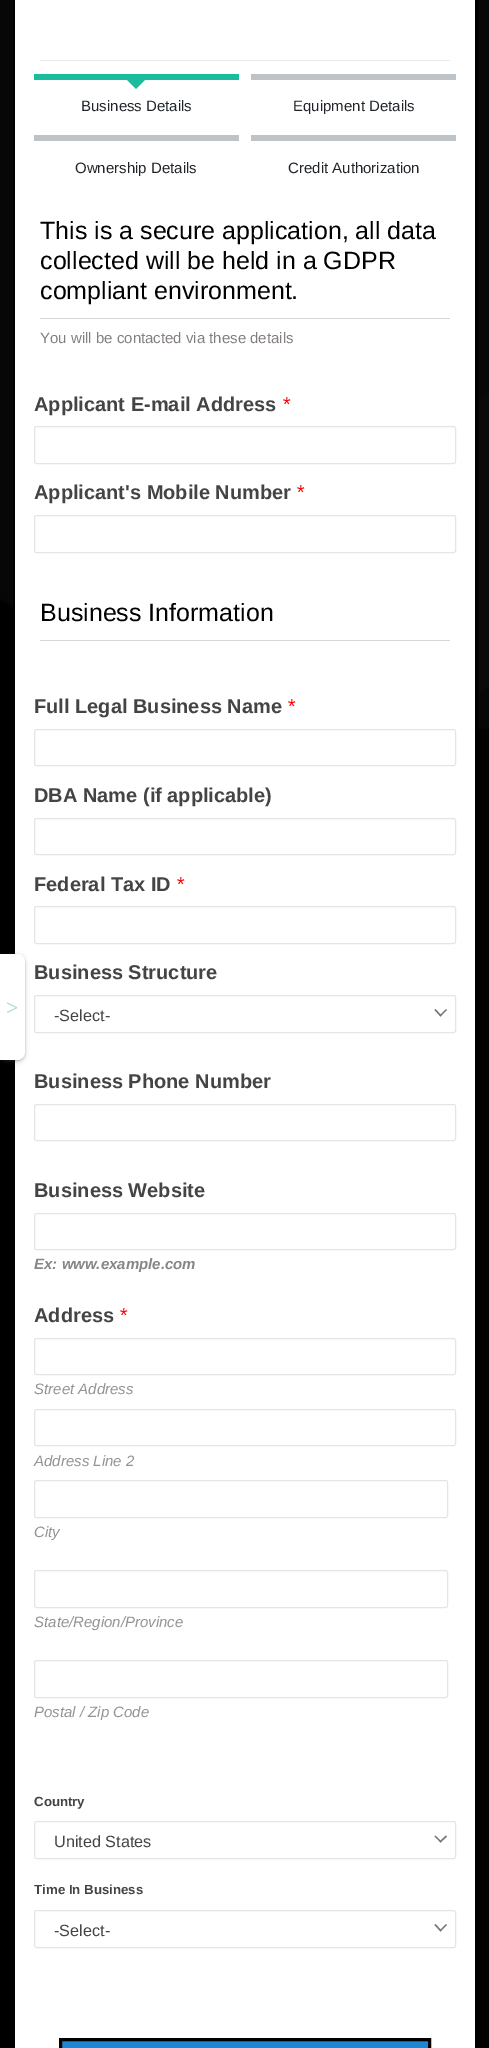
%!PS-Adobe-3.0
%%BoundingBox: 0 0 489 2048
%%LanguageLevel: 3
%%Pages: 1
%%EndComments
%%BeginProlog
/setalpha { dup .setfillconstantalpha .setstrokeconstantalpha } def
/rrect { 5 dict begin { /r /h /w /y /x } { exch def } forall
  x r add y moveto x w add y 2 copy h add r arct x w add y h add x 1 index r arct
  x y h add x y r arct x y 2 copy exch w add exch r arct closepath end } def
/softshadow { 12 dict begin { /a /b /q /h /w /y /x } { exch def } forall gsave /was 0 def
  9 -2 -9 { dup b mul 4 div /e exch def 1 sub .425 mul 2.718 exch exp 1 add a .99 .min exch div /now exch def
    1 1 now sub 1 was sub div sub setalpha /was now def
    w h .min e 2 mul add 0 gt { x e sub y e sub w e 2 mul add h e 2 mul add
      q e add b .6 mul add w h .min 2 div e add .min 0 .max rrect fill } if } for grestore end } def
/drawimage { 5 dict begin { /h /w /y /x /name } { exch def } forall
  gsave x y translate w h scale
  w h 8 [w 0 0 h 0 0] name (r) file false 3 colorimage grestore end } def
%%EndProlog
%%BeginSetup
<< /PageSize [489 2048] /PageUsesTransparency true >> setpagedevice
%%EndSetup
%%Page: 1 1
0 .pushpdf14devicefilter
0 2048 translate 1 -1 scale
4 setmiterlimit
1 setgray
0 0 489 2048 rectfill
(images/1.raw) 0 0 489 2048 drawimage
0 setgray
3 setlinewidth
14.5 -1.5 462 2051 rectstroke
1 setgray
15 0 460 2048 rectfill
0.235 0.251 0.263 setrgbcolor
-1 954 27 109 9 2 0.15 softshadow
0 955 25 106 8 1 0.3 softshadow
1 setgray
newpath 0 954 moveto 17 954 lineto 21.5 954 25 957.5 25 962 curveto 25 1052 lineto 25 1056.5 21.5 1060 17 1060 curveto 0 1060 lineto closepath fill
0.918 setgray
40 60 410 1 rectfill
0.102 0.737 0.612 setrgbcolor
34 74 205 6 rectfill
newpath 126 79 moveto 146 79 lineto 136 89 lineto closepath fill
0.741 0.765 0.78 setrgbcolor
251 74 205 6 rectfill
34 135 205 6 rectfill
251 135 205 6 rectfill
0.843 setgray
40 318 410 1 rectfill
0.898 setgray
1 setlinewidth
34.5 426.5 421 37 2 rrect stroke
34.5 515.5 421 37 2 rrect stroke
0.843 setgray
40 640 410 1 rectfill
0.898 setgray
34.5 729.5 421 36 2 rrect stroke
34.5 818.5 421 36 2 rrect stroke
34.5 906.5 421 37 2 rrect stroke
34.5 995.5 421 37 2 rrect stroke
0.467 setgray
newpath 446 1009 moveto 447 1010 lineto 440.5 1016.5 lineto 439.5 1015.5 lineto closepath fill
newpath 435.5 1009 moveto 441.5 1015.5 lineto 440.5 1016.5 lineto 434.5 1010 lineto closepath fill
0.898 setgray
34.5 1104.5 421 36 2 rrect stroke
34.5 1213.5 421 36 2 rrect stroke
34.5 1338.5 421 36 2 rrect stroke
34.5 1409.5 421 36 2 rrect stroke
34.5 1480.5 413 37 2 rrect stroke
34.5 1570.5 413 37 2 rrect stroke
34.5 1660.5 413 37 2 rrect stroke
34.5 1821.5 421 37 2 rrect stroke
0.467 setgray
newpath 446 1835.5 moveto 447 1836.5 lineto 440.5 1842.5 lineto 439.5 1841.5 lineto closepath fill
newpath 435.5 1835.5 moveto 441.5 1841.5 lineto 440.5 1842.5 lineto 434.5 1836.5 lineto closepath fill
0.898 setgray
34.5 1910.5 421 37 2 rrect stroke
0.467 setgray
newpath 446 1924 moveto 447 1925 lineto 440.5 1931.5 lineto 439.5 1930.5 lineto closepath fill
newpath 435.5 1924 moveto 441.5 1930.5 lineto 440.5 1931.5 lineto 434.5 1925 lineto closepath fill
0.098 0.533 0.839 setrgbcolor
newpath 60.5 2039.5 moveto 429.5 2039.5 lineto 429.5 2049.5 lineto 60.5 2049.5 lineto closepath gsave fill grestore
0 setgray
3 setlinewidth
stroke
/LiberationSerif-Bold [22 0 0 -22 0 0] selectfont
0.714 0.878 0.776 setrgbcolor
6 1015 moveto (>) show
/LiberationSans-Regular [15 0 0 -15 0 0] selectfont
0.129 0.145 0.161 setrgbcolor
81 111 moveto (Business Details) show
293 111 moveto (Equipment Details) show
75 173 moveto (Ownership Details) show
288 173 moveto (Credit Authorization) show
/LiberationSans-Regular [25 0 0 -25 0 0] selectfont
0 setgray
40 239 moveto (This is a secure application, all data) show
40 269 moveto (collected will be held in a GDPR) show
40 299 moveto (compliant environment.) show
/LiberationSans-Regular [15 0 0 -15 0 0] selectfont
0.518 0.498 0.498 setrgbcolor
40 343 moveto (You will be contacted via these details) show
/LiberationSans-Bold [20 0 0 -20 0 0] selectfont
0.267 setgray
34 411 moveto (Applicant E-mail Address) show
/LiberationSans-Italic [20 0 0 -20 0 0] selectfont
1 0 0 setrgbcolor
282 411 moveto (*) show
/LiberationSans-Bold [20 0 0 -20 0 0] selectfont
0.267 setgray
34 499 moveto (Applicant's Mobile Number) show
/LiberationSans-Italic [20 0 0 -20 0 0] selectfont
1 0 0 setrgbcolor
296 499 moveto (*) show
/LiberationSans-Regular [25 0 0 -25 0 0] selectfont
0 setgray
40 621 moveto (Business Information) show
/LiberationSans-Bold [20 0 0 -20 0 0] selectfont
0.267 setgray
34 713 moveto (Full Legal Business Name) show
/LiberationSans-Italic [20 0 0 -20 0 0] selectfont
1 0 0 setrgbcolor
287 713 moveto (*) show
/LiberationSans-Bold [20 0 0 -20 0 0] selectfont
0.267 setgray
34 802 moveto (DBA Name \(if applicable\)) show
34 891 moveto (Federal Tax ID) show
/LiberationSans-Italic [20 0 0 -20 0 0] selectfont
1 0 0 setrgbcolor
176 891 moveto (*) show
/LiberationSans-Bold [20 0 0 -20 0 0] selectfont
0.267 setgray
34 979 moveto (Business Structure) show
/LiberationSans-Regular [16.25 0 0 -16.25 0 0] selectfont
54 1021 moveto (-Select-) show
/LiberationSans-Bold [20 0 0 -20 0 0] selectfont
34 1088 moveto (Business Phone Number) show
34 1197 moveto (Business Website) show
/LiberationSans-BoldItalic [15 0 0 -15 0 0] selectfont
0.525 setgray
34 1269 moveto (Ex: www.example.com) show
/LiberationSans-Bold [20 0 0 -20 0 0] selectfont
0.267 setgray
34 1322 moveto (Address) show
/LiberationSans-Italic [20 0 0 -20 0 0] selectfont
1 0 0 setrgbcolor
119 1322 moveto (*) show
/LiberationSans-Italic [15 0 0 -15 0 0] selectfont
0.576 setgray
34 1394 moveto (Street Address) show
34 1466 moveto (Address Line 2) show
34 1537 moveto (City) show
34 1627 moveto (State/Region/Province) show
34 1717 moveto (Postal / Zip Code) show
/LiberationSans-Bold [13.25 0 0 -13.25 0 0] selectfont
0.267 setgray
34 1806 moveto (Country) show
/LiberationSans-Regular [16.25 0 0 -16.25 0 0] selectfont
54 1847 moveto (United States) show
/LiberationSans-Bold [13.25 0 0 -13.25 0 0] selectfont
34 1894 moveto (Time In Business) show
/LiberationSans-Regular [16.25 0 0 -16.25 0 0] selectfont
54 1936 moveto (-Select-) show
.poppdf14devicefilter showpage
%%EOF
